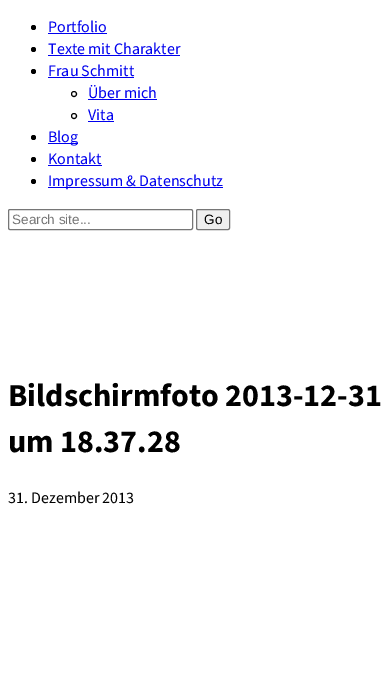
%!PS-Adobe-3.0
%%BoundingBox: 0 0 390 695
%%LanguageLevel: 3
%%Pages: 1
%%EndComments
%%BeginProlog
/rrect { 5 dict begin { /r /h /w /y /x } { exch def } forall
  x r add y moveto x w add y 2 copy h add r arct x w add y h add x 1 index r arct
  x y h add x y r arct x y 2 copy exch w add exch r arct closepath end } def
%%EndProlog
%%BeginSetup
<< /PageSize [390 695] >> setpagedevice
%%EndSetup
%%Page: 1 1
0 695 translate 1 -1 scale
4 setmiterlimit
1 setgray
0 0 390 695 rectfill
0 setgray
newpath 33.5 27.5 2.5 0 360 arc closepath fill
0 0 0.933 setrgbcolor
48 33 59 1 rectfill
0 setgray
newpath 33.5 49.5 2.5 0 360 arc closepath fill
0 0 0.933 setrgbcolor
48 55 132 1 rectfill
0 setgray
newpath 33.5 71.5 2.5 0 360 arc closepath fill
0 0 0.933 setrgbcolor
48 77 86 1 rectfill
0 setgray
newpath 74 94 2.5 0 360 arc closepath stroke
0 0 0.933 setrgbcolor
88 99 69 1 rectfill
0 setgray
newpath 74 116 2.5 0 360 arc closepath stroke
0 0 0.933 setrgbcolor
88 121 26 1 rectfill
0 setgray
newpath 33.5 137.5 2.5 0 360 arc closepath fill
0 0 0.933 setrgbcolor
48 143 30 1 rectfill
0 setgray
newpath 33.5 159.5 2.5 0 360 arc closepath fill
0 0 0.933 setrgbcolor
48 165 54 1 rectfill
0 setgray
newpath 33.5 181.5 2.5 0 360 arc closepath fill
0 0 0.933 setrgbcolor
48 187 175 1 rectfill
0.463 setgray
8.5 209.5 184 20 1.5 rrect stroke
0.937 setgray
196.5 209.5 33 20 1.5 rrect gsave fill grestore
0.463 setgray
stroke
/SourceSans3-Regular [16 0 0 -16 0 0] selectfont
0 0 0.933 setrgbcolor
48 32 moveto (Portfolio) show
48 54 moveto (Texte mit Charakter) show
48 76 moveto (Frau Schmitt) show
88 98 moveto (Über mich) show
88 120 moveto (Vita) show
48 142 moveto (Blog) show
48 164 moveto (Kontakt) show
48 186 moveto (Impressum & Datenschutz) show
/LiberationSans-Regular [13.5 0 0 -13.5 0 0] selectfont
0.459 setgray
12 224 moveto (Search site...) show
0 setgray
204 224 moveto (Go) show
/SourceSans3-Bold [32 0 0 -32 0 0] selectfont
8 406 moveto (Bildschirmfoto 2013-12-31) show
8 452 moveto (um 18.37.28) show
/SourceSans3-Regular [16 0 0 -16 0 0] selectfont
8 503 moveto (31. Dezember 2013) show
showpage
%%EOF
